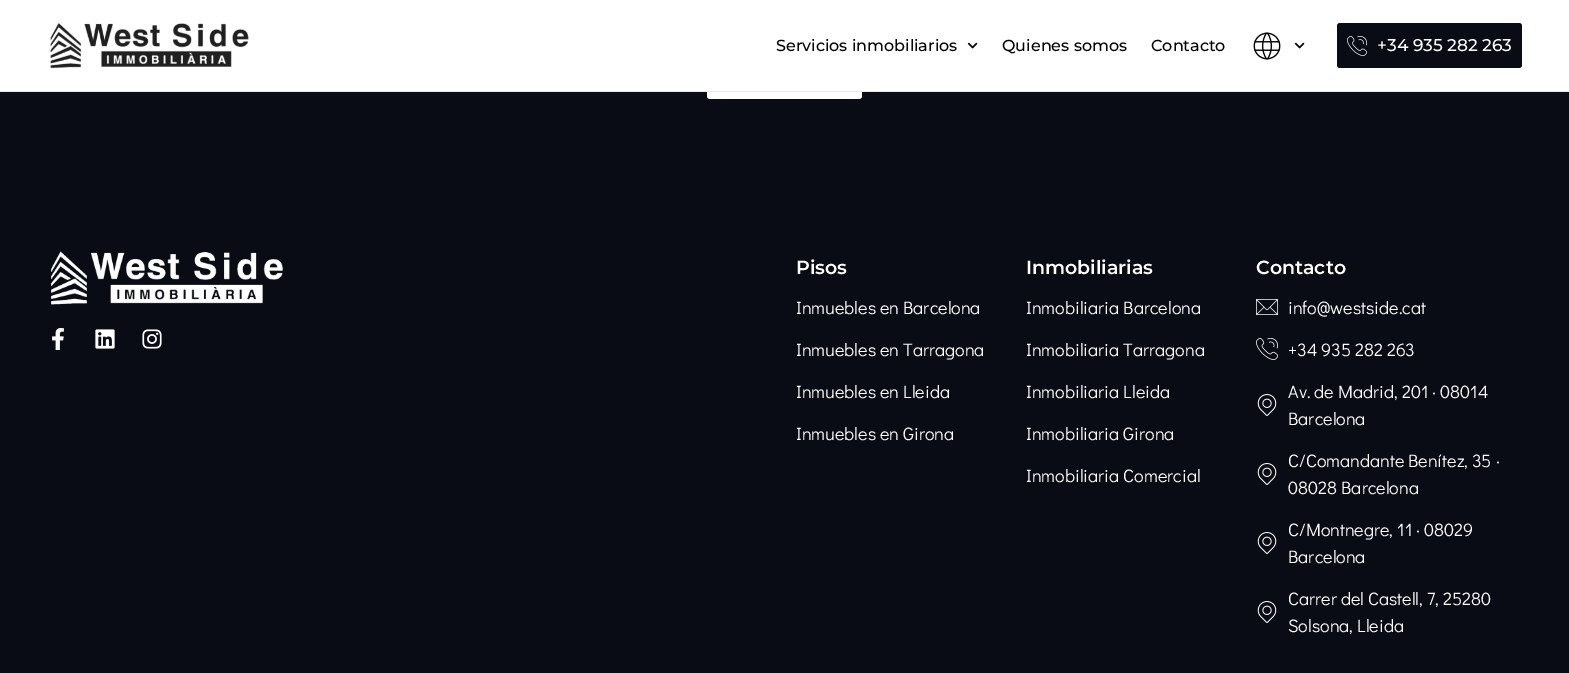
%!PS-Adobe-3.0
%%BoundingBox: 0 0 1569 673
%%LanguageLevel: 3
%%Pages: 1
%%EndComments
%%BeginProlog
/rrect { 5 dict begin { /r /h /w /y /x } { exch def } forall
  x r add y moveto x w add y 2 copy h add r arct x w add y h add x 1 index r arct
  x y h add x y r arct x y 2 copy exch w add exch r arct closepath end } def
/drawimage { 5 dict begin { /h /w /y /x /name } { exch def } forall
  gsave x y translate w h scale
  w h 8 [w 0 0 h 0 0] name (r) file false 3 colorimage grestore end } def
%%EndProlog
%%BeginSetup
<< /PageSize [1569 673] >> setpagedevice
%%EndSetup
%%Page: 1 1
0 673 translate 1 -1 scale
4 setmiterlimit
0.035 0.047 0.078 setrgbcolor
0 0 1569 673 rectfill
1 setgray
707 54 155 45 3 rrect fill
0 0 1569 91 rectfill
0.902 0.906 0.91 setrgbcolor
0 91 1569 1 rectfill
(images/1.raw) 50 23 199 46 drawimage
(images/2.raw) 967 42 11 7 drawimage
(images/3.raw) 1253 32 28 28 drawimage
(images/2.raw) 1294 42 11 7 drawimage
0.035 0.047 0.078 setrgbcolor
1337 23 185 45 3 rrect fill
(images/4.raw) 1347 36 20 20 drawimage
(images/5.raw) 51 251 232 54 drawimage
(images/6.raw) 52 328 12 22 drawimage
(images/7.raw) 95 329 20 20 drawimage
(images/8.raw) 142 329 20 20 drawimage
(images/9.raw) 1256 299 22 16 drawimage
(images/10.raw) 1256 338 22 22 drawimage
(images/11.raw) 1257 394 20 22 drawimage
(images/11.raw) 1257 463 20 22 drawimage
(images/11.raw) 1257 532 20 22 drawimage
(images/11.raw) 1257 601 20 22 drawimage
/Montserrat-Medium [16 0 0 -16 0 0] selectfont
0 setgray
776 51 moveto (Servicios inmobiliarios) show
1002 51 moveto (Quienes somos) show
1151 51 moveto (Contacto) show
/Montserrat-Medium [17 0 0 -17 0 0] selectfont
1 setgray
1377 51 moveto (+34 935 282 263) show
/Montserrat-SemiBold [19 0 0 -19 0 0] selectfont
796 274 moveto (Pisos) show
/DidactGothic-Regular [18 0 0 -18 0 0] selectfont
796 314 moveto (Inmuebles en Barcelona) show
796 356 moveto (Inmuebles en Tarragona) show
796 398 moveto (Inmuebles en Lleida) show
796 440 moveto (Inmuebles en Girona) show
/Montserrat-SemiBold [19 0 0 -19 0 0] selectfont
1026 274 moveto (Inmobiliarias) show
/DidactGothic-Regular [18 0 0 -18 0 0] selectfont
1026 314 moveto (Inmobiliaria Barcelona) show
1026 356 moveto (Inmobiliaria Tarragona) show
1026 398 moveto (Inmobiliaria Lleida) show
1026 440 moveto (Inmobiliaria Girona) show
1026 482 moveto (Inmobiliaria Comercial) show
/Montserrat-SemiBold [19 0 0 -19 0 0] selectfont
1256 274 moveto (Contacto) show
/DidactGothic-Regular [18 0 0 -18 0 0] selectfont
1288 314 moveto (info@westside.cat) show
1288 356 moveto (+34 935 282 263) show
1288 398 moveto (Av. de Madrid, 201 · 08014) show
1288 425 moveto (Barcelona) show
1288 467 moveto (C/Comandante Benítez, 35 ·) show
1288 494 moveto (08028 Barcelona) show
1288 536 moveto (C/Montnegre, 11 · 08029) show
1288 563 moveto (Barcelona) show
1288 605 moveto (Carrer del Castell, 7, 25280) show
1288 632 moveto (Solsona, Lleida) show
showpage
%%EOF
